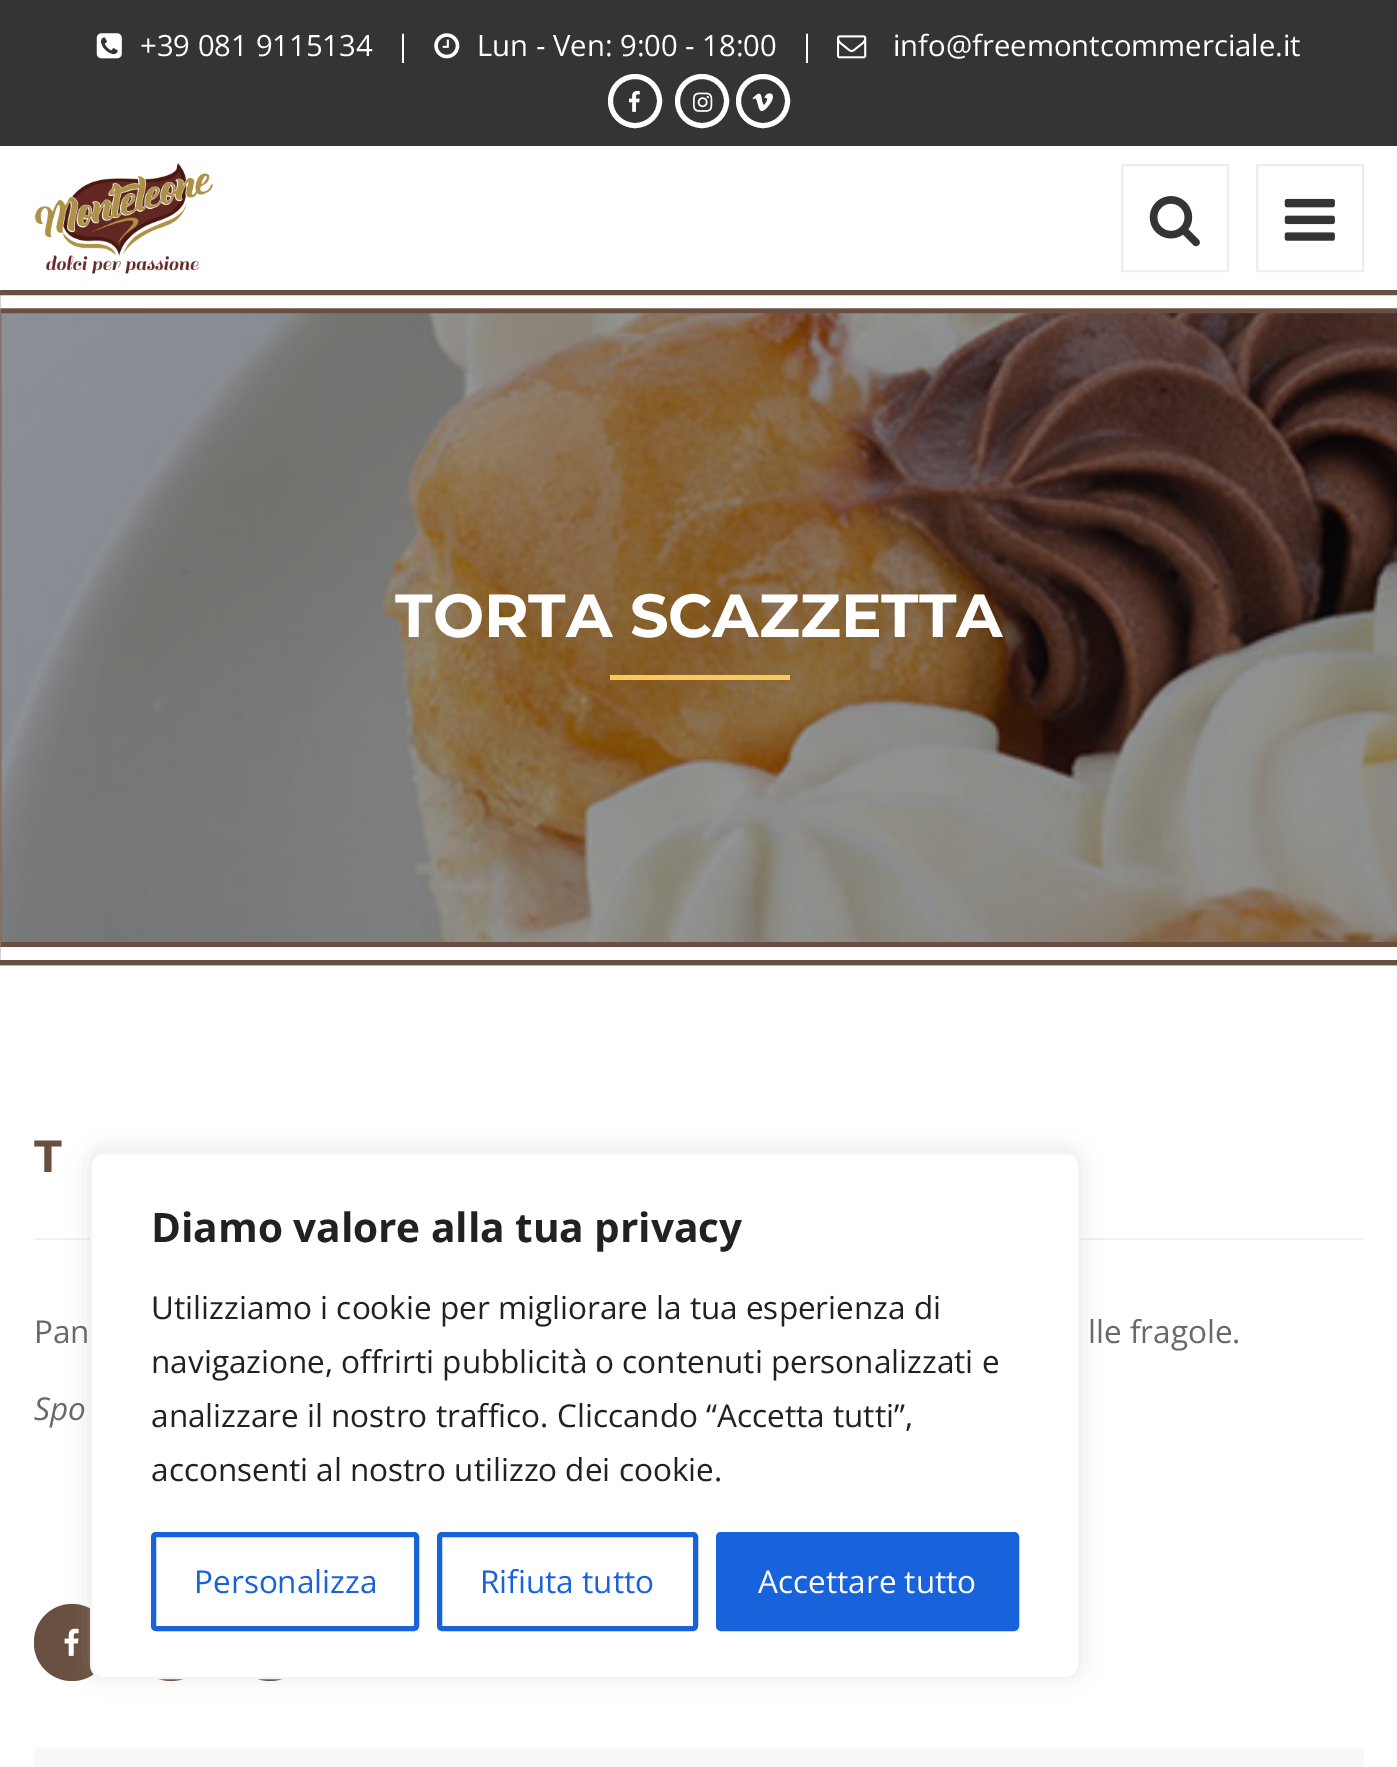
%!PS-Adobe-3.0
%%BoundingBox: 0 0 1397 1767
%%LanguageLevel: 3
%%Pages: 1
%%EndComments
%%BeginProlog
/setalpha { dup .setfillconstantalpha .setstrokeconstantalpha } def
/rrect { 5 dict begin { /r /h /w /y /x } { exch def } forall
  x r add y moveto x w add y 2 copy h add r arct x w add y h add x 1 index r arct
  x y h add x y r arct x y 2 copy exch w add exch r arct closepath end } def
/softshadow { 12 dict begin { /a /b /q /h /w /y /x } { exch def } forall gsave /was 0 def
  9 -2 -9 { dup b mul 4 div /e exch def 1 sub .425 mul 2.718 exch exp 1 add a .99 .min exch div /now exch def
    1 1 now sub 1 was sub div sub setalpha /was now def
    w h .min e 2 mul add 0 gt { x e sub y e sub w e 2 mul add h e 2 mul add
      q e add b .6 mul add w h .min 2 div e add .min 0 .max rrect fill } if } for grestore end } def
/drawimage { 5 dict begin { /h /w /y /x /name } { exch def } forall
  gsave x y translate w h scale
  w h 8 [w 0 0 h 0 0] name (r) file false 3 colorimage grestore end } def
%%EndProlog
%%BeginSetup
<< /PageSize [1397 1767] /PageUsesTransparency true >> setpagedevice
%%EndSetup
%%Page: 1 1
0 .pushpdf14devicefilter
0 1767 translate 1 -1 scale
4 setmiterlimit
1 setgray
0 0 1397 1767 rectfill
0.204 setgray
0 0 1397 146 rectfill
(images/1.raw) 96 33 26 26 drawimage
(images/2.raw) 434 33 26 26 drawimage
(images/3.raw) 837 35 30 24 drawimage
1 setgray
5 setlinewidth
newpath 635 101 24.5 0 360 arc closepath stroke
(images/4.raw) 628 91 12 21 drawimage
newpath 702 101 24.5 0 360 arc closepath stroke
(images/5.raw) 693 92 20 20 drawimage
newpath 763 101 24.5 0 360 arc closepath stroke
(images/6.raw) 752 93 21 18 drawimage
(images/7.raw) 35 163 178 111 drawimage
0.933 setgray
2 setlinewidth
1122 165 106 106 rectstroke
(images/8.raw) 1149 196 51 51 drawimage
1257 165 106 106 rectstroke
(images/9.raw) 1284 198 51 43 drawimage
(images/10.raw) 1 313 1396 629 drawimage
0.408 0.31 0.251 setrgbcolor
23 setlinewidth
-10.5 301.5 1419 652 rectstroke
1 setgray
18 setlinewidth
-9 299 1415 657 rectstroke
0.408 0.31 0.251 setrgbcolor
5 setlinewidth
-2.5 292.5 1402 670 rectstroke
0.98 0.788 0.349 setrgbcolor
610 675 180 5 rectfill
0.945 setgray
34 1238 1330 2 rectfill
0.408 0.31 0.251 setrgbcolor
34 1604 76 77 38 rrect fill
(images/11.raw) 64 1628 15 28 drawimage
133 1604 76 77 38 rrect fill
232 1604 76 77 38 rrect fill
0.973 setgray
34 1748 1330 19 rectfill
0.675 0.671 0.671 setrgbcolor
90 1150 990 526 14 11 0.3 softshadow
1 setgray
91 1153 988 525 13 rrect gsave fill grestore
0.957 setgray
2 setlinewidth
stroke
0.094 0.388 0.863 setrgbcolor
5 setlinewidth
153.5 1534.5 263 94 2.5 rrect stroke
439.5 1534.5 256 94 2.5 rrect stroke
718.5 1534.5 298 94 2.5 rrect gsave fill grestore
stroke
/OpenSans-Regular [29.25 0 0 -29.25 0 0] selectfont
1 setgray
140 56 moveto (+39 081 9115134) show
395 56 moveto (|) show
477 56 moveto (Lun - Ven: 9:00 - 18:00) show
799 56 moveto (|) show
893 56 moveto (info@freemontcommerciale.it) show
/Montserrat-Bold [60.75 0 0 -60.75 0 0] selectfont
395 637 moveto (TORTA SCAZZETTA) show
/Montserrat-Bold [45 0 0 -45 0 0] selectfont
0.408 0.31 0.251 setrgbcolor
34 1172 moveto (T) show
/OpenSans-Regular [31.5 0 0 -31.5 0 0] selectfont
0.412 setgray
34 1343 moveto (Pan) show
1088 1343 moveto (lle fragole.) show
/OpenSans-Italic [31.5 0 0 -31.5 0 0] selectfont
34 1420 moveto (Spo) show
/OpenSans-Bold [40.5 0 0 -40.5 0 0] selectfont
0.129 setgray
151 1242 moveto (Diamo valore alla tua privacy) show
/OpenSans-Regular [31.5 0 0 -31.5 0 0] selectfont
151 1319 moveto (Utilizziamo i cookie per migliorare la tua esperienza di) show
151 1373 moveto (navigazione, offrirti pubblicità o contenuti personalizzati e) show
151 1427 moveto (analizzare il nostro traffico. Cliccando “Accetta tutti”,) show
151 1481 moveto (acconsenti al nostro utilizzo dei cookie.) show
0.094 0.388 0.863 setrgbcolor
194 1593 moveto (Personalizza) show
480 1593 moveto (Rifiuta tutto) show
1 setgray
758 1593 moveto (Accettare tutto) show
.poppdf14devicefilter showpage
%%EOF
